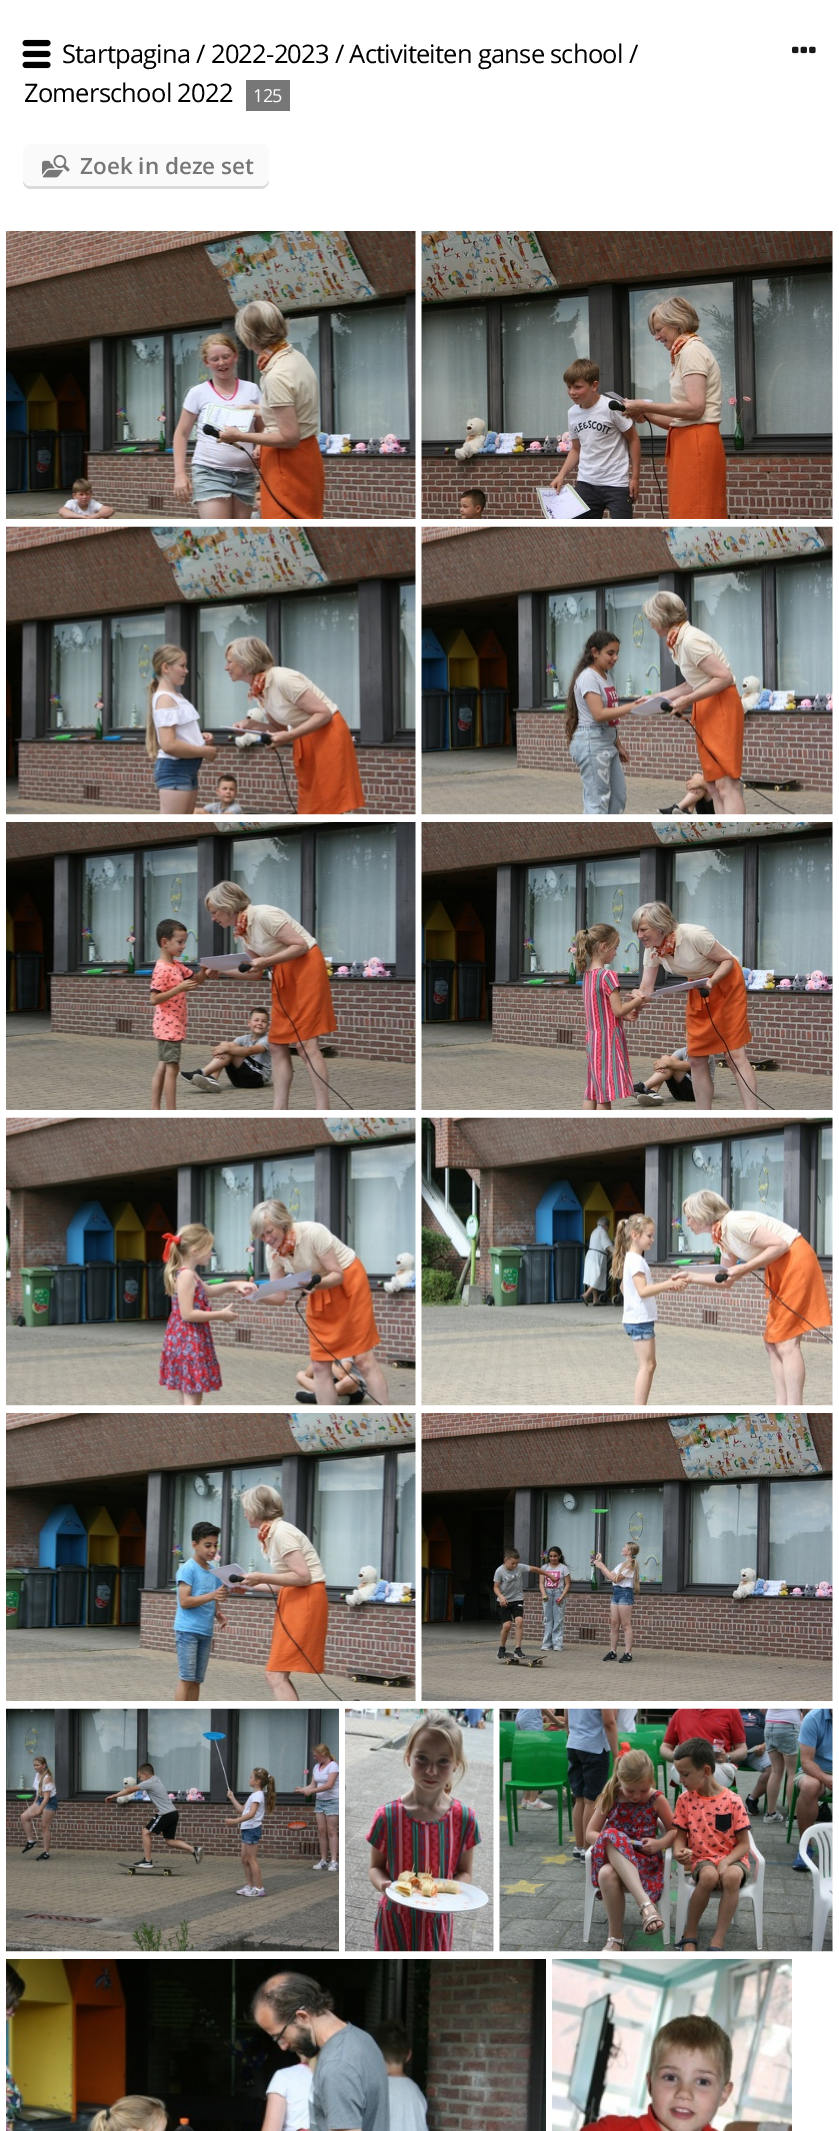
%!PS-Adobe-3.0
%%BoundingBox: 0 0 839 2131
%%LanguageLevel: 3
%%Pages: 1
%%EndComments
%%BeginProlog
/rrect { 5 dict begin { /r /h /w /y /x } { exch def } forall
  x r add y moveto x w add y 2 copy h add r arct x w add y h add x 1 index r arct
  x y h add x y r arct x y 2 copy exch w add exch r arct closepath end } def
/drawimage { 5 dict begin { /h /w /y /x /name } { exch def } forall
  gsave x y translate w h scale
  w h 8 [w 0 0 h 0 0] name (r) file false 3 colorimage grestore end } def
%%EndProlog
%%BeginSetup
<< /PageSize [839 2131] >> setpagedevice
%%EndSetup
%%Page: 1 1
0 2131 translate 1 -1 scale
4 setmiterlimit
1 setgray
0 0 839 2131 rectfill
(images/1.raw) 22 39 29 30 drawimage
0.467 setgray
246 80 44 31 rectfill
(images/2.raw) 792 46 24 8 drawimage
0.859 setgray
newpath 23 181 moveto 23 186 27 189 31 189 curveto 261 189 lineto 265 189 269 185 269 181 curveto 269 155 lineto 268 152 lineto 268 178 lineto 268 183 265 186 261 186 curveto 30 186 lineto 27 186 24 184 23 181 curveto closepath fill
0.98 setgray
23 144 246 42 8 rrect fill
(images/3.raw) 42 154 28 24 drawimage
(images/4.raw) 6 231 410 288 drawimage
(images/5.raw) 421 231 412 288 drawimage
(images/6.raw) 6 526 410 289 drawimage
(images/7.raw) 421 526 412 289 drawimage
(images/8.raw) 6 822 410 288 drawimage
(images/9.raw) 421 822 412 288 drawimage
(images/10.raw) 6 1117 410 289 drawimage
(images/11.raw) 421 1117 412 289 drawimage
(images/12.raw) 6 1413 410 288 drawimage
(images/13.raw) 421 1413 412 288 drawimage
(images/14.raw) 6 1708 333 244 drawimage
(images/15.raw) 345 1708 149 244 drawimage
(images/16.raw) 499 1708 334 244 drawimage
(images/17.raw) 6 1959 540 172 drawimage
(images/18.raw) 552 1959 240 172 drawimage
/OpenSans-Regular [25.5 0 0 -25.5 0 0] selectfont
0 setgray
62 63 moveto -0.75 0 (Startpagina / 2022-2023 / Activiteiten ganse school /) ashow
24 102 moveto -0.75 0 (Zomerschool 2022) ashow
/OpenSans-Regular [18 0 0 -18 0 0] selectfont
1 setgray
253 102 moveto -0.75 0 (125) ashow
/OpenSans-SemiBold [22.5 0 0 -22.5 0 0] selectfont
0.467 setgray
80 174 moveto (Zoek in deze set) show
showpage
%%EOF
